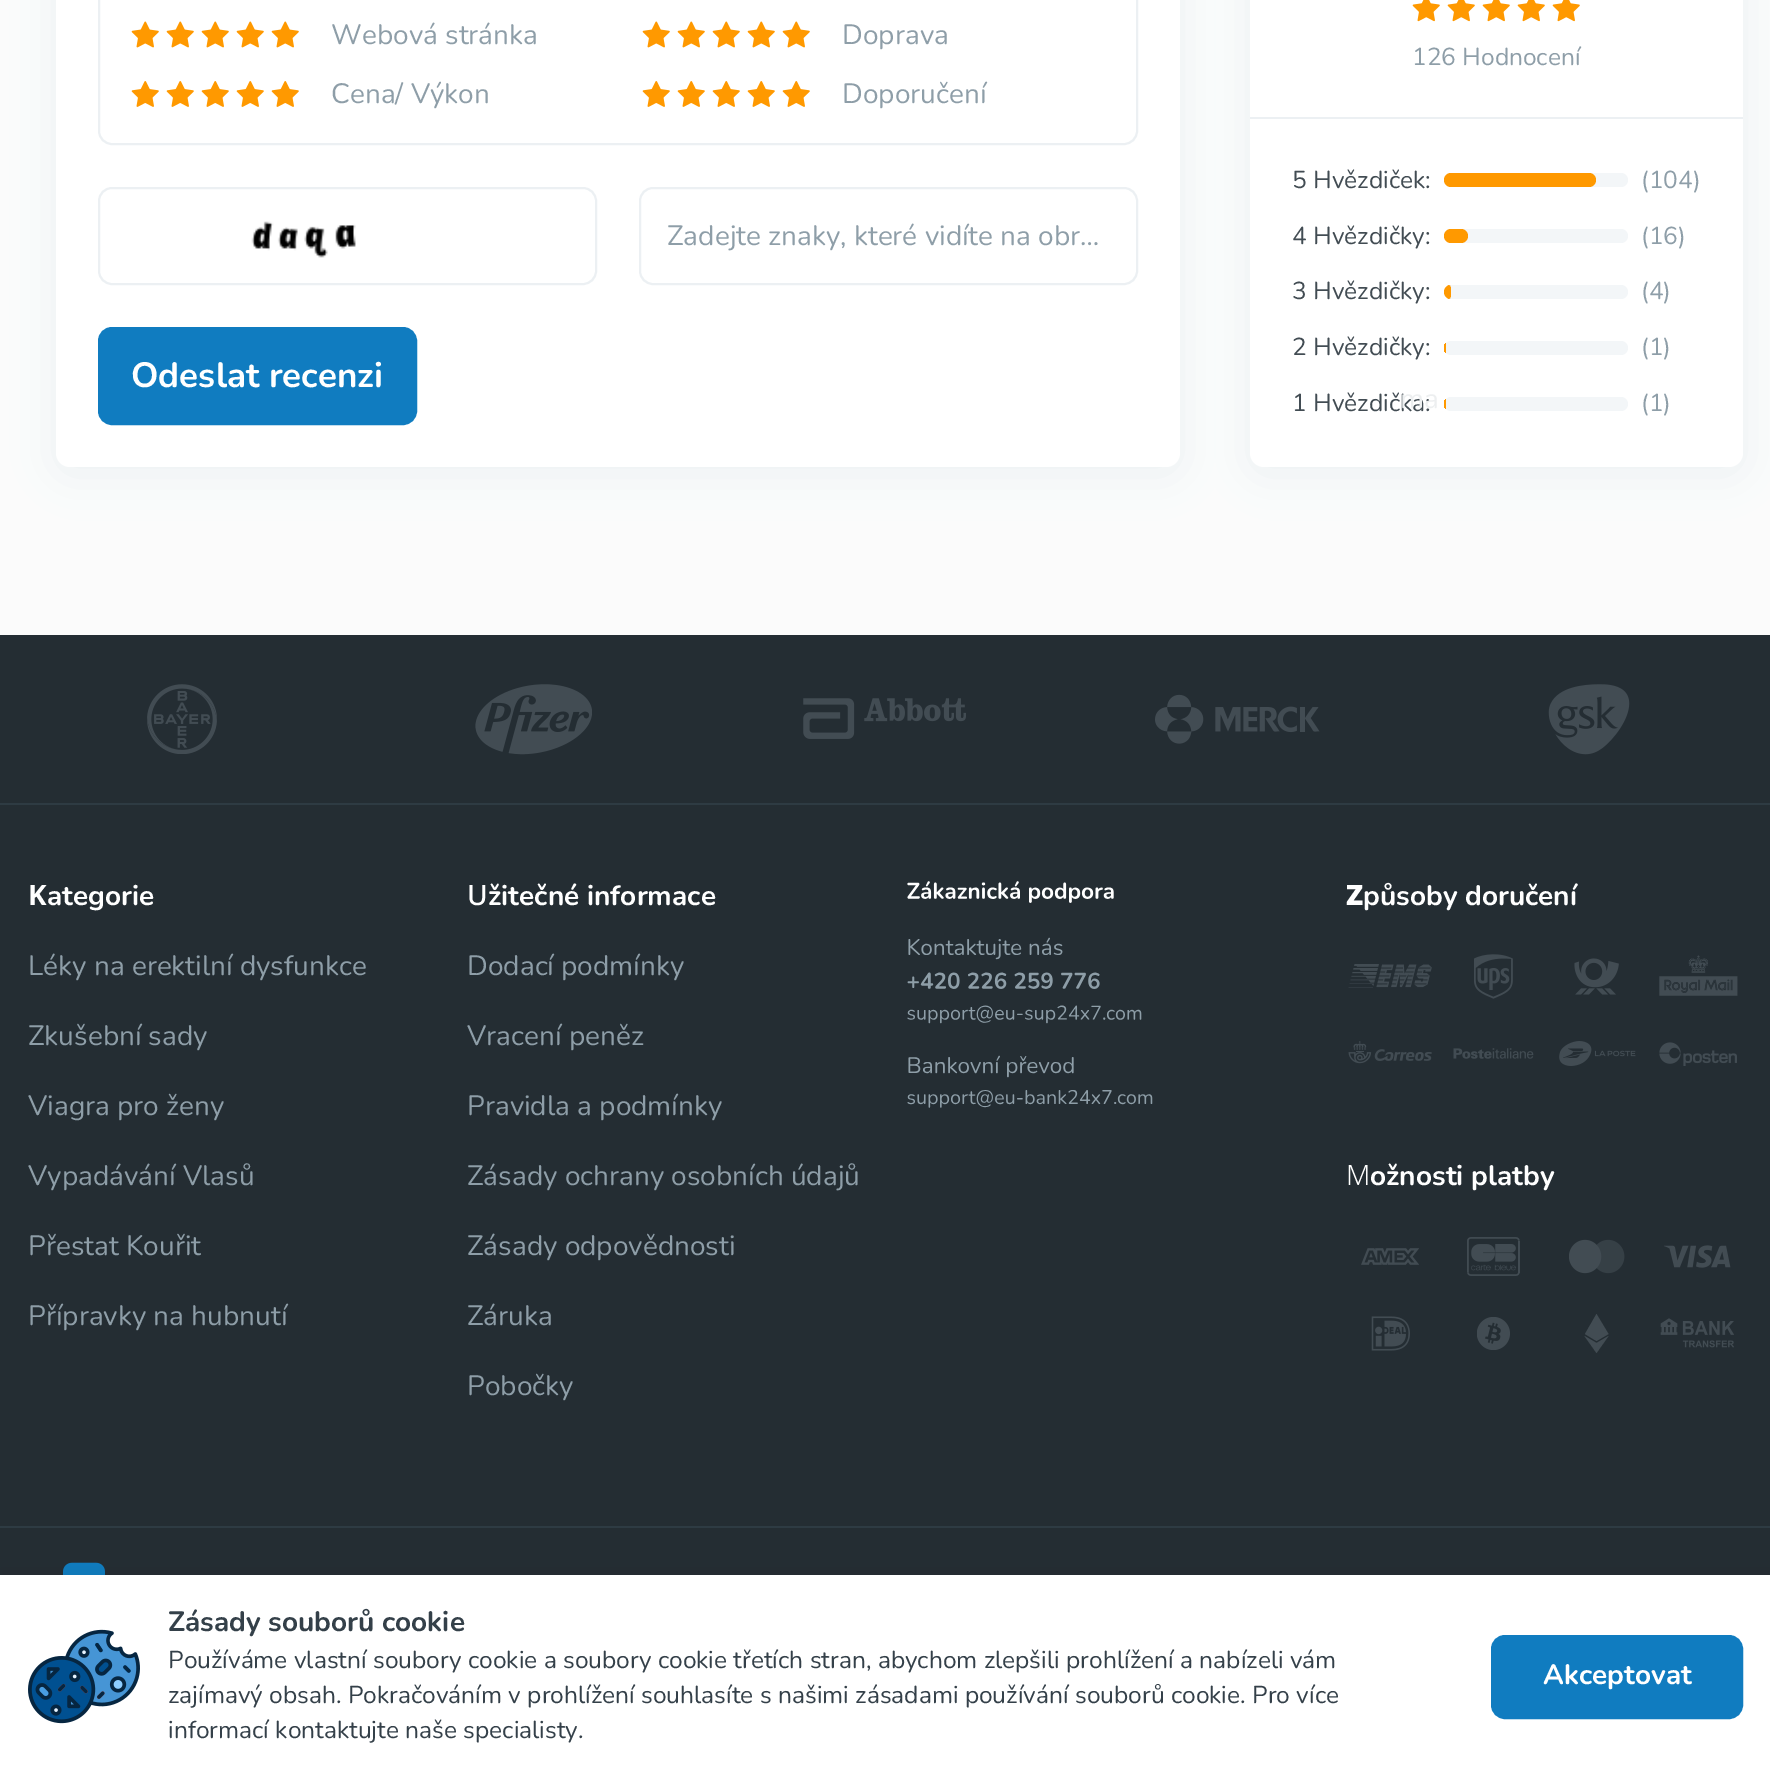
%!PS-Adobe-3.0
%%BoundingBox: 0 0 1770 1776
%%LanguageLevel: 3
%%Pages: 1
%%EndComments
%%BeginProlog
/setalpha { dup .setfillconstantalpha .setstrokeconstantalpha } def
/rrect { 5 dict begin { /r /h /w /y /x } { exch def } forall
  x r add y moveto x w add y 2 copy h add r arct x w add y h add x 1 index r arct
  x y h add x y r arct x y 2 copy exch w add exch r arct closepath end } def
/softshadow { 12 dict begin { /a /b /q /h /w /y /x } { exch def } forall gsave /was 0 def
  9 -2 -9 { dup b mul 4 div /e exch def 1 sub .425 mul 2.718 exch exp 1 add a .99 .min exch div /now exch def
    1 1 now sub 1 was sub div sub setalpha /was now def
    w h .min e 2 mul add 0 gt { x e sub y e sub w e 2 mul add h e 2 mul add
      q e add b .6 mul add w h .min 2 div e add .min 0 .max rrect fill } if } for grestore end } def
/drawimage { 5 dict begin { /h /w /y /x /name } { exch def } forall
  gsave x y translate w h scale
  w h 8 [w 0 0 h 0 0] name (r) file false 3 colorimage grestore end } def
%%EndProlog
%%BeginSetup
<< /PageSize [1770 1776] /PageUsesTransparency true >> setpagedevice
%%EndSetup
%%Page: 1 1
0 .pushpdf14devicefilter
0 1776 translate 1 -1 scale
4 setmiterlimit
0.984 setgray
0 0 1770 1776 rectfill
0.922 0.941 0.949 setrgbcolor
56 -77 1124 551 14 21 1 softshadow
1 setgray
56 -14 1124 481 14 rrect fill
0.925 0.941 0.953 setrgbcolor
2 setlinewidth
99 -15 1038 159 13 rrect stroke
(images/1.raw) 131 21 28 27 drawimage
(images/1.raw) 166 21 28 27 drawimage
(images/1.raw) 201 21 28 27 drawimage
(images/1.raw) 236 21 28 27 drawimage
(images/1.raw) 271 21 28 27 drawimage
(images/1.raw) 642 21 28 27 drawimage
(images/1.raw) 677 21 28 27 drawimage
(images/1.raw) 712 21 28 27 drawimage
(images/1.raw) 747 21 28 27 drawimage
(images/1.raw) 782 21 28 27 drawimage
(images/2.raw) 131 81 28 26 drawimage
(images/2.raw) 166 81 28 26 drawimage
(images/2.raw) 201 81 28 26 drawimage
(images/2.raw) 236 81 28 26 drawimage
(images/2.raw) 271 81 28 26 drawimage
(images/2.raw) 642 81 28 26 drawimage
(images/2.raw) 677 81 28 26 drawimage
(images/2.raw) 712 81 28 26 drawimage
(images/2.raw) 747 81 28 26 drawimage
(images/2.raw) 782 81 28 26 drawimage
99 188 497 96 13 rrect stroke
(images/3.raw) 251 221 105 37 drawimage
640 188 497 96 13 rrect stroke
0.063 0.486 0.753 setrgbcolor
99 328 317 96 13 rrect gsave fill grestore
stroke
0.922 0.941 0.949 setrgbcolor
1250 -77 493 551 14 21 1 softshadow
1 setgray
1250 -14 493 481 14 rrect fill
(images/4.raw) 1412 0 28 22 drawimage
(images/4.raw) 1447 0 28 22 drawimage
(images/4.raw) 1482 0 28 22 drawimage
(images/4.raw) 1517 0 28 22 drawimage
(images/4.raw) 1552 0 28 22 drawimage
0.925 0.941 0.953 setrgbcolor
1250 117 493 2 rectfill
0.953 0.965 0.973 setrgbcolor
1444 173 184 14 7 rrect fill
1 0.6 0 setrgbcolor
1444 173 152 14 7 rrect fill
0.953 0.965 0.973 setrgbcolor
1444 229 184 14 7 rrect fill
1 0.6 0 setrgbcolor
1444 229 24 14 7 rrect fill
0.953 0.965 0.973 setrgbcolor
1444 285 184 14 7 rrect fill
1 0.6 0 setrgbcolor
newpath 1451 285 moveto 1447.5 285 lineto 1449.5 285 1451 286.5 1451 288.5 curveto 1451 295.5 lineto 1451 297.5 1449.5 299 1447.5 299 curveto 1451 299 lineto 1447 299 1444 296 1444 292 curveto 1444 288 1447 285 1451 285 curveto closepath fill
0.953 0.965 0.973 setrgbcolor
1444 341 184 14 7 rrect fill
gsave
1444 341 184 14 7 rrect clip newpath
1 0.6 0 setrgbcolor
1444 341 2 14 1 rrect fill
grestore
1444 397 184 14 7 rrect fill
gsave
1444 397 184 14 7 rrect clip newpath
1 0.6 0 setrgbcolor
1444 397 2 14 1 rrect fill
grestore
0.141 0.176 0.2 setrgbcolor
0 635 1770 940 rectfill
0.18 0.231 0.263 setrgbcolor
0 803 1770 2 rectfill
(images/5.raw) 147 684 70 70 drawimage
(images/6.raw) 475 684 117 71 drawimage
(images/7.raw) 803 698 163 41 drawimage
(images/8.raw) 1155 694 165 50 drawimage
(images/9.raw) 1548 684 82 71 drawimage
0 1526 1770 2 rectfill
(images/10.raw) 907 881 246 227 drawimage
(images/11.raw) 1348 964 84 24 drawimage
(images/12.raw) 1474 954 39 45 drawimage
(images/13.raw) 1574 958 45 37 drawimage
(images/14.raw) 1659 955 79 41 drawimage
(images/15.raw) 1348 1041 84 23 drawimage
(images/16.raw) 1453 1048 81 11 drawimage
(images/17.raw) 1559 1041 77 25 drawimage
(images/18.raw) 1659 1042 78 24 drawimage
(images/19.raw) 1361 1248 58 17 drawimage
(images/20.raw) 1467 1237 53 39 drawimage
(images/21.raw) 1569 1239 56 35 drawimage
(images/22.raw) 1664 1245 67 23 drawimage
(images/23.raw) 1371 1316 39 35 drawimage
(images/24.raw) 1477 1317 33 33 drawimage
0.259 0.298 0.325 setrgbcolor
newpath 1596.5 1343 moveto 1584.5 1336 lineto 1596.5 1353 lineto 1608.5 1336 lineto closepath 1596.5 1314 moveto 1585 1334 lineto 1596.5 1341 lineto 1608.5 1334 lineto closepath fill
(images/25.raw) 1660 1318 74 30 drawimage
(images/26.raw) 63 1562 58 13 drawimage
0 setgray
0 1568 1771 201 0 7 0.05 softshadow
1 setgray
0 1575 1770 201 rectfill
(images/27.raw) 28 1629 112 95 drawimage
0.063 0.486 0.753 setrgbcolor
1492 1636 250 82 13 rrect gsave fill grestore
stroke
/Nunito-Regular [28 0 0 -28 0 0] selectfont
0.557 0.62 0.659 setrgbcolor
331 44 moveto (Webová stránka) show
842 44 moveto (Doprava) show
331 103 moveto (Cena/ Výkon) show
842 103 moveto (Doporučení) show
667 245 moveto (Zadejte znaky, které vidíte na obr…) show
/Nunito-Bold [35 0 0 -35 0 0] selectfont
1 setgray
131 387 moveto (Odeslat recenzi) show
/Nunito-Regular [24.5 0 0 -24.5 0 0] selectfont
0.557 0.62 0.659 setrgbcolor
1412 65 moveto (126 Hodnocení) show
0.259 0.298 0.325 setrgbcolor
1292 188 moveto (5 Hvězdiček:) show
0.557 0.62 0.659 setrgbcolor
1641 188 moveto (\(104\)) show
0.259 0.298 0.325 setrgbcolor
1292 244 moveto (4 Hvězdičky:) show
0.557 0.62 0.659 setrgbcolor
1641 244 moveto (\(16\)) show
0.259 0.298 0.325 setrgbcolor
1292 299 moveto (3 Hvězdičky:) show
0.557 0.62 0.659 setrgbcolor
1641 299 moveto (\(4\)) show
0.259 0.298 0.325 setrgbcolor
1292 355 moveto (2 Hvězdičky:) show
0.557 0.62 0.659 setrgbcolor
1641 355 moveto (\(1\)) show
0.259 0.298 0.325 setrgbcolor
1292 411 moveto (1 Hvězdička:) show
0.557 0.62 0.659 setrgbcolor
1641 411 moveto (\(1\)) show
/Nunito-Regular [28 0 0 -28 0 0] selectfont
0.929 0.937 0.941 setrgbcolor
1400 408 moveto (ma) show
/NotoSans-Bold [28 0 0 -28 0 0] selectfont
1 setgray
28 905 moveto (K) show
/Nunito-Bold [28 0 0 -28 0 0] selectfont
47 905 moveto (ategorie) show
/Nunito-Regular [28 0 0 -28 0 0] selectfont
0.557 0.62 0.659 setrgbcolor
28 975 moveto (Léky na erektilní dysfunkce) show
28 1045 moveto (Zkušební sady) show
28 1115 moveto (Viagra pro ženy) show
28 1185 moveto (Vypadávání Vlasů) show
28 1255 moveto (Přestat Kouřit) show
28 1325 moveto (Přípravky na hubnutí) show
/NotoSans-Medium [28 0 0 -28 0 0] selectfont
1 setgray
467 905 moveto (U) show
/Nunito-Bold [28 0 0 -28 0 0] selectfont
488 905 moveto (žitečné informace) show
/Nunito-Regular [28 0 0 -28 0 0] selectfont
0.557 0.62 0.659 setrgbcolor
467 975 moveto (Dodací podmínky) show
467 1045 moveto (Vracení peněz) show
467 1115 moveto (Pravidla a podmínky) show
467 1185 moveto (Zásady ochrany osobních údajů) show
467 1255 moveto (Zásady odpovědnosti) show
467 1325 moveto (Záruka) show
467 1395 moveto (Pobočky) show
/NotoSans-Black [28 0 0 -28 0 0] selectfont
1 setgray
1346 905 moveto (Z) show
/Nunito-Bold [28 0 0 -28 0 0] selectfont
1363 905 moveto (působy doručení) show
/NotoSans-Light [28 0 0 -28 0 0] selectfont
1346 1185 moveto (M) show
/Nunito-Bold [28 0 0 -28 0 0] selectfont
1370 1185 moveto (ožnosti platby) show
0.204 0.251 0.286 setrgbcolor
168 1631 moveto (Zásady souborů cookie) show
/Nunito-Regular [24.5 0 0 -24.5 0 0] selectfont
168 1668 moveto (Používáme vlastní soubory cookie a soubory cookie třetích stran, abychom zlepšili prohlížení a nabízeli vám) show
168 1703 moveto (zajímavý obsah. Pokračováním v prohlížení souhlasíte s našimi zásadami používání souborů cookie. Pro více) show
168 1738 moveto (informací kontaktujte naše specialisty.) show
/Nunito-Bold [28 0 0 -28 0 0] selectfont
1 setgray
1543 1684 moveto (Akceptovat) show
.poppdf14devicefilter showpage
%%EOF
